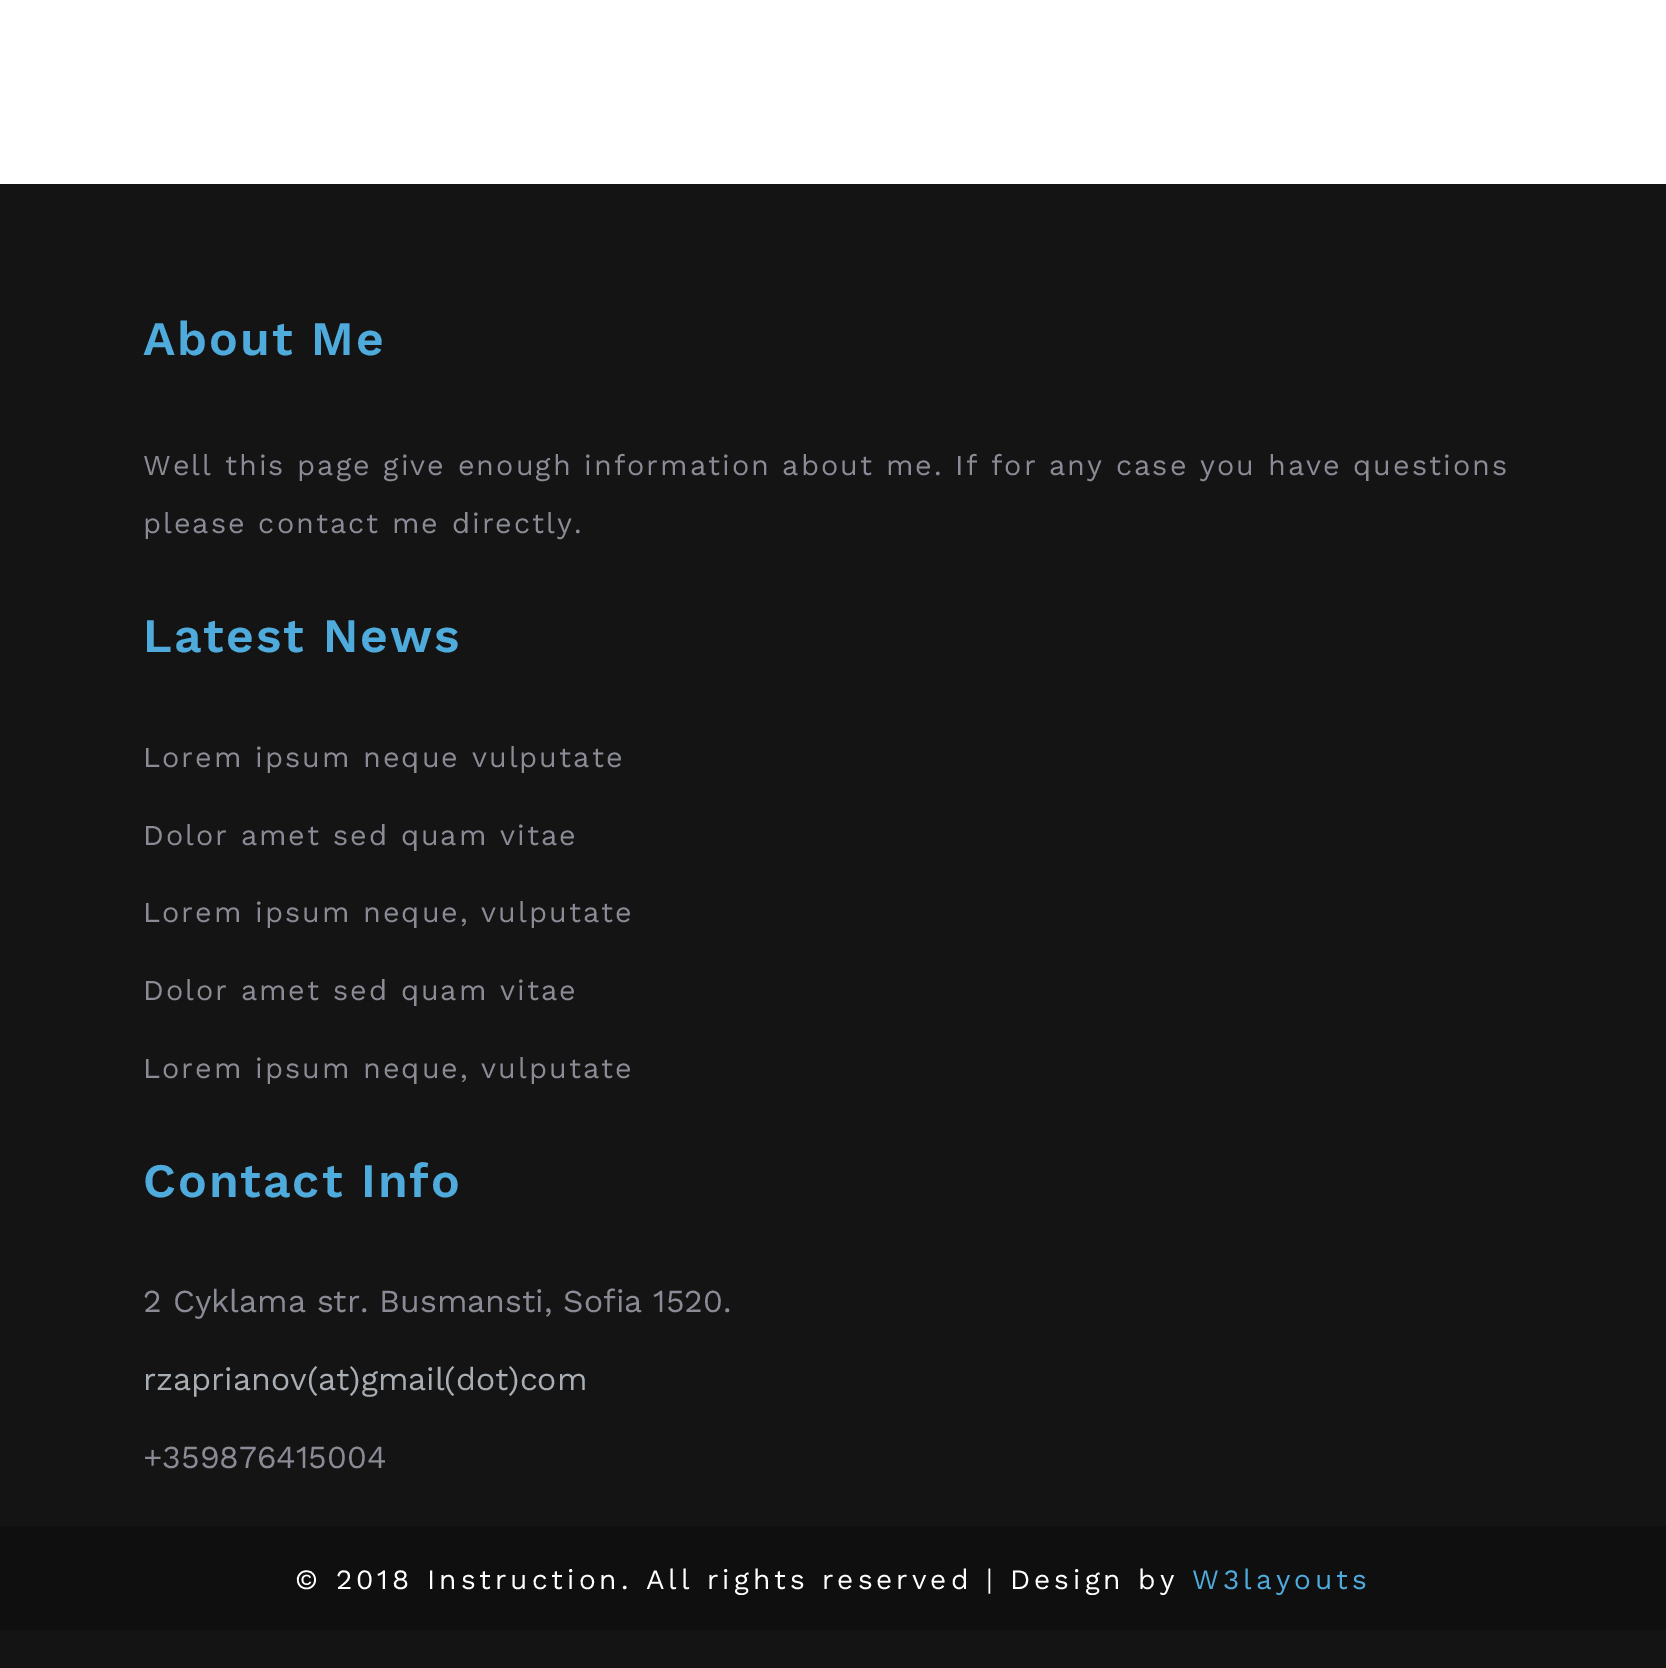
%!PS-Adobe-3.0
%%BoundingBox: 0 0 1666 1668
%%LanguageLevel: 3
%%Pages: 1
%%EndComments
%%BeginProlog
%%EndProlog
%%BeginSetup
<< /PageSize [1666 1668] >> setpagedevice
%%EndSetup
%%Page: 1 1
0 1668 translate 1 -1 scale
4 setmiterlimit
1 setgray
0 0 1666 1668 rectfill
0.078 0.078 0.082 setrgbcolor
0 184 1666 1484 rectfill
0.059 0.059 0.063 setrgbcolor
0 1526 1666 104 rectfill
/WorkSans-SemiBold [48 0 0 -48 0 0] selectfont
0.314 0.671 0.867 setrgbcolor
143 355 moveto 2 0 (About Me) ashow
/WorkSans-Regular [28.8 0 0 -28.8 0 0] selectfont
0.545 0.545 0.588 setrgbcolor
143 475 moveto 2 0 (Well this page give enough information about me. If for any case you have questions) ashow
143 533 moveto 2 0 (please contact me directly.) ashow
/WorkSans-SemiBold [48 0 0 -48 0 0] selectfont
0.314 0.671 0.867 setrgbcolor
143 652 moveto 2 0 (Latest News) ashow
/WorkSans-Regular [28.8 0 0 -28.8 0 0] selectfont
0.545 0.545 0.588 setrgbcolor
143 767 moveto 2 0 (Lorem ipsum neque vulputate) ashow
143 845 moveto 2 0 (Dolor amet sed quam vitae) ashow
143 922 moveto 2 0 (Lorem ipsum neque, vulputate) ashow
143 1000 moveto 2 0 (Dolor amet sed quam vitae) ashow
143 1078 moveto 2 0 (Lorem ipsum neque, vulputate) ashow
/WorkSans-SemiBold [48 0 0 -48 0 0] selectfont
0.314 0.671 0.867 setrgbcolor
143 1197 moveto 2 0 (Contact Info) ashow
/WorkSans-Regular [32 0 0 -32 0 0] selectfont
0.545 0.545 0.588 setrgbcolor
143 1312 moveto (2 Cyklama str. Busmansti, Sofia 1520.) show
0.659 0.682 0.702 setrgbcolor
143 1390 moveto (rzaprianov\(at\)gmail\(dot\)com) show
0.545 0.545 0.588 setrgbcolor
143 1468 moveto (+359876415004) show
/WorkSans-Regular [28 0 0 -28 0 0] selectfont
1 setgray
295 1589 moveto 4 0 (© 2018 Instruction. All rights reserved | Design by) ashow
0.314 0.671 0.867 setrgbcolor
1192 1589 moveto 4 0 (W3layouts) ashow
showpage
%%EOF
